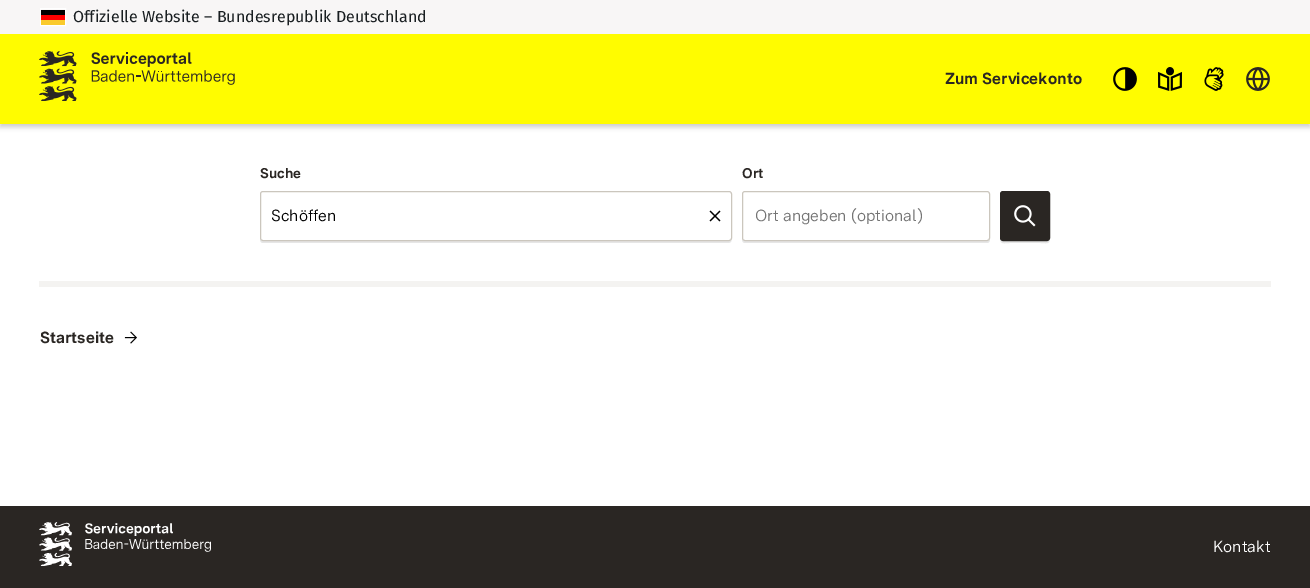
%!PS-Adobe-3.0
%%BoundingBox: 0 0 1310 588
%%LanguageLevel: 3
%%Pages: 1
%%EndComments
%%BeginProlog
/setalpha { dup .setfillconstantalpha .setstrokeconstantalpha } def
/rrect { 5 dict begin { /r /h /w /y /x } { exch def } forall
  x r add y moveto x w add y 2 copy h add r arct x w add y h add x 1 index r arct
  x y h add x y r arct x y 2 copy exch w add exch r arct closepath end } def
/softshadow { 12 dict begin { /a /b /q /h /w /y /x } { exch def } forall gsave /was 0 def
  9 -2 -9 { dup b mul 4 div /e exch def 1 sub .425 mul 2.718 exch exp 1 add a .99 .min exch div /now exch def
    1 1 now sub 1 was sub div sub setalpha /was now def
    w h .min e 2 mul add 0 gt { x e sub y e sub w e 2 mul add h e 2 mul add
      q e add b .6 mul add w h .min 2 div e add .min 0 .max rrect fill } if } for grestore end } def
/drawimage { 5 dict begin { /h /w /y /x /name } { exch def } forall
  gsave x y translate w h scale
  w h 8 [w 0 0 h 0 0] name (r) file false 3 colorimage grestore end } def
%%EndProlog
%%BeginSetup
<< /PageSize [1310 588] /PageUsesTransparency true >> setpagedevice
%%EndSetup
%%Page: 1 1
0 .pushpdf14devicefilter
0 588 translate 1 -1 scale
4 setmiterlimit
1 setgray
0 0 1310 588 rectfill
0 setgray
0 3 1310 124 0 2.5 0.2 softshadow
1 0.988 0 setrgbcolor
0 34 1310 90 rectfill
0.973 0.965 0.965 setrgbcolor
0 0 1310 34 rectfill
1 setgray
40.5 8.5 25 17 rectstroke
0 setgray
41 10 24 5 rectfill
1 0 0 setrgbcolor
41 15 24 5 rectfill
0.98 0.792 0.173 setrgbcolor
41 20 24 5 rectfill
(images/1.raw) 39 51 196 50 drawimage
(images/2.raw) 1113 67 24 24 drawimage
(images/3.raw) 1158 67 24 24 drawimage
(images/4.raw) 1204 67 20 24 drawimage
(images/5.raw) 1246 67 24 24 drawimage
0.957 0.953 0.945 setrgbcolor
39 281 1232 6 rectfill
0.902 setgray
newpath 260 238 moveto 260 240 260 243 263 243 curveto 729 243 lineto 731 242 lineto 732 238 lineto 732 240 731 241 729 241 curveto 263 241 lineto 261 241 260 240 260 238 curveto closepath fill
1 setgray
260.5 191.5 471 49 2.5 rrect gsave fill grestore
0.796 0.776 0.741 setrgbcolor
stroke
(images/6.raw) 709 210 12 12 drawimage
0.902 setgray
newpath 742 238 moveto 742 240 742 243 745 243 curveto 987 243 lineto 990 243 990 240 990 238 curveto 990 240 989 241 987 241 curveto 745 241 lineto 743 241 742 240 742 238 curveto closepath fill
1 setgray
742.5 191.5 247 49 2.5 rrect gsave fill grestore
0.796 0.776 0.741 setrgbcolor
stroke
0.902 setgray
newpath 1000 238 moveto 1000 245 1004 243 1010 243 curveto 1040 243 lineto 1046 243 1050 245 1050 238 curveto 1050 240 1049 241 1047 241 curveto 1003 241 lineto 1001 241 1000 240 1000 238 curveto closepath fill
0.165 0.149 0.137 setrgbcolor
1001 192 48 48 2 rrect gsave fill grestore
2 setlinewidth
stroke
(images/7.raw) 1014 205 22 22 drawimage
(images/8.raw) 124 331 13 13 drawimage
0 506 1310 82 rectfill
(images/9.raw) 39 522 172 44 drawimage
/FiraSans-Regular [16 0 0 -16 0 0] selectfont
0.098 0.118 0.129 setrgbcolor
73 22 moveto (Offizielle Website – Bundesrepublik Deutschland) show
/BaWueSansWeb-Bold [16 0 0 -16 0 0] selectfont
0.165 0.149 0.137 setrgbcolor
945 84 moveto (Zum Servicekonto) show
/BaWueSansWeb-Bold [14 0 0 -14 0 0] selectfont
260 178 moveto (Suche) show
/BaWueSansWeb-Regular [16 0 0 -16 0 0] selectfont
0 setgray
271 221 moveto (Schöffen) show
/BaWueSansWeb-Bold [14 0 0 -14 0 0] selectfont
0.165 0.149 0.137 setrgbcolor
742 178 moveto (Ort) show
/BaWueSansWeb-Regular [16 0 0 -16 0 0] selectfont
0.459 setgray
755 221 moveto (Ort angeben \(optional\)) show
/BaWueSansWeb-Bold [16 0 0 -16 0 0] selectfont
0.165 0.149 0.137 setrgbcolor
40 343 moveto (Startseite) show
/BaWueSansWeb-Regular [16 0 0 -16 0 0] selectfont
1 setgray
1213 552 moveto (Kontakt) show
.poppdf14devicefilter showpage
%%EOF
